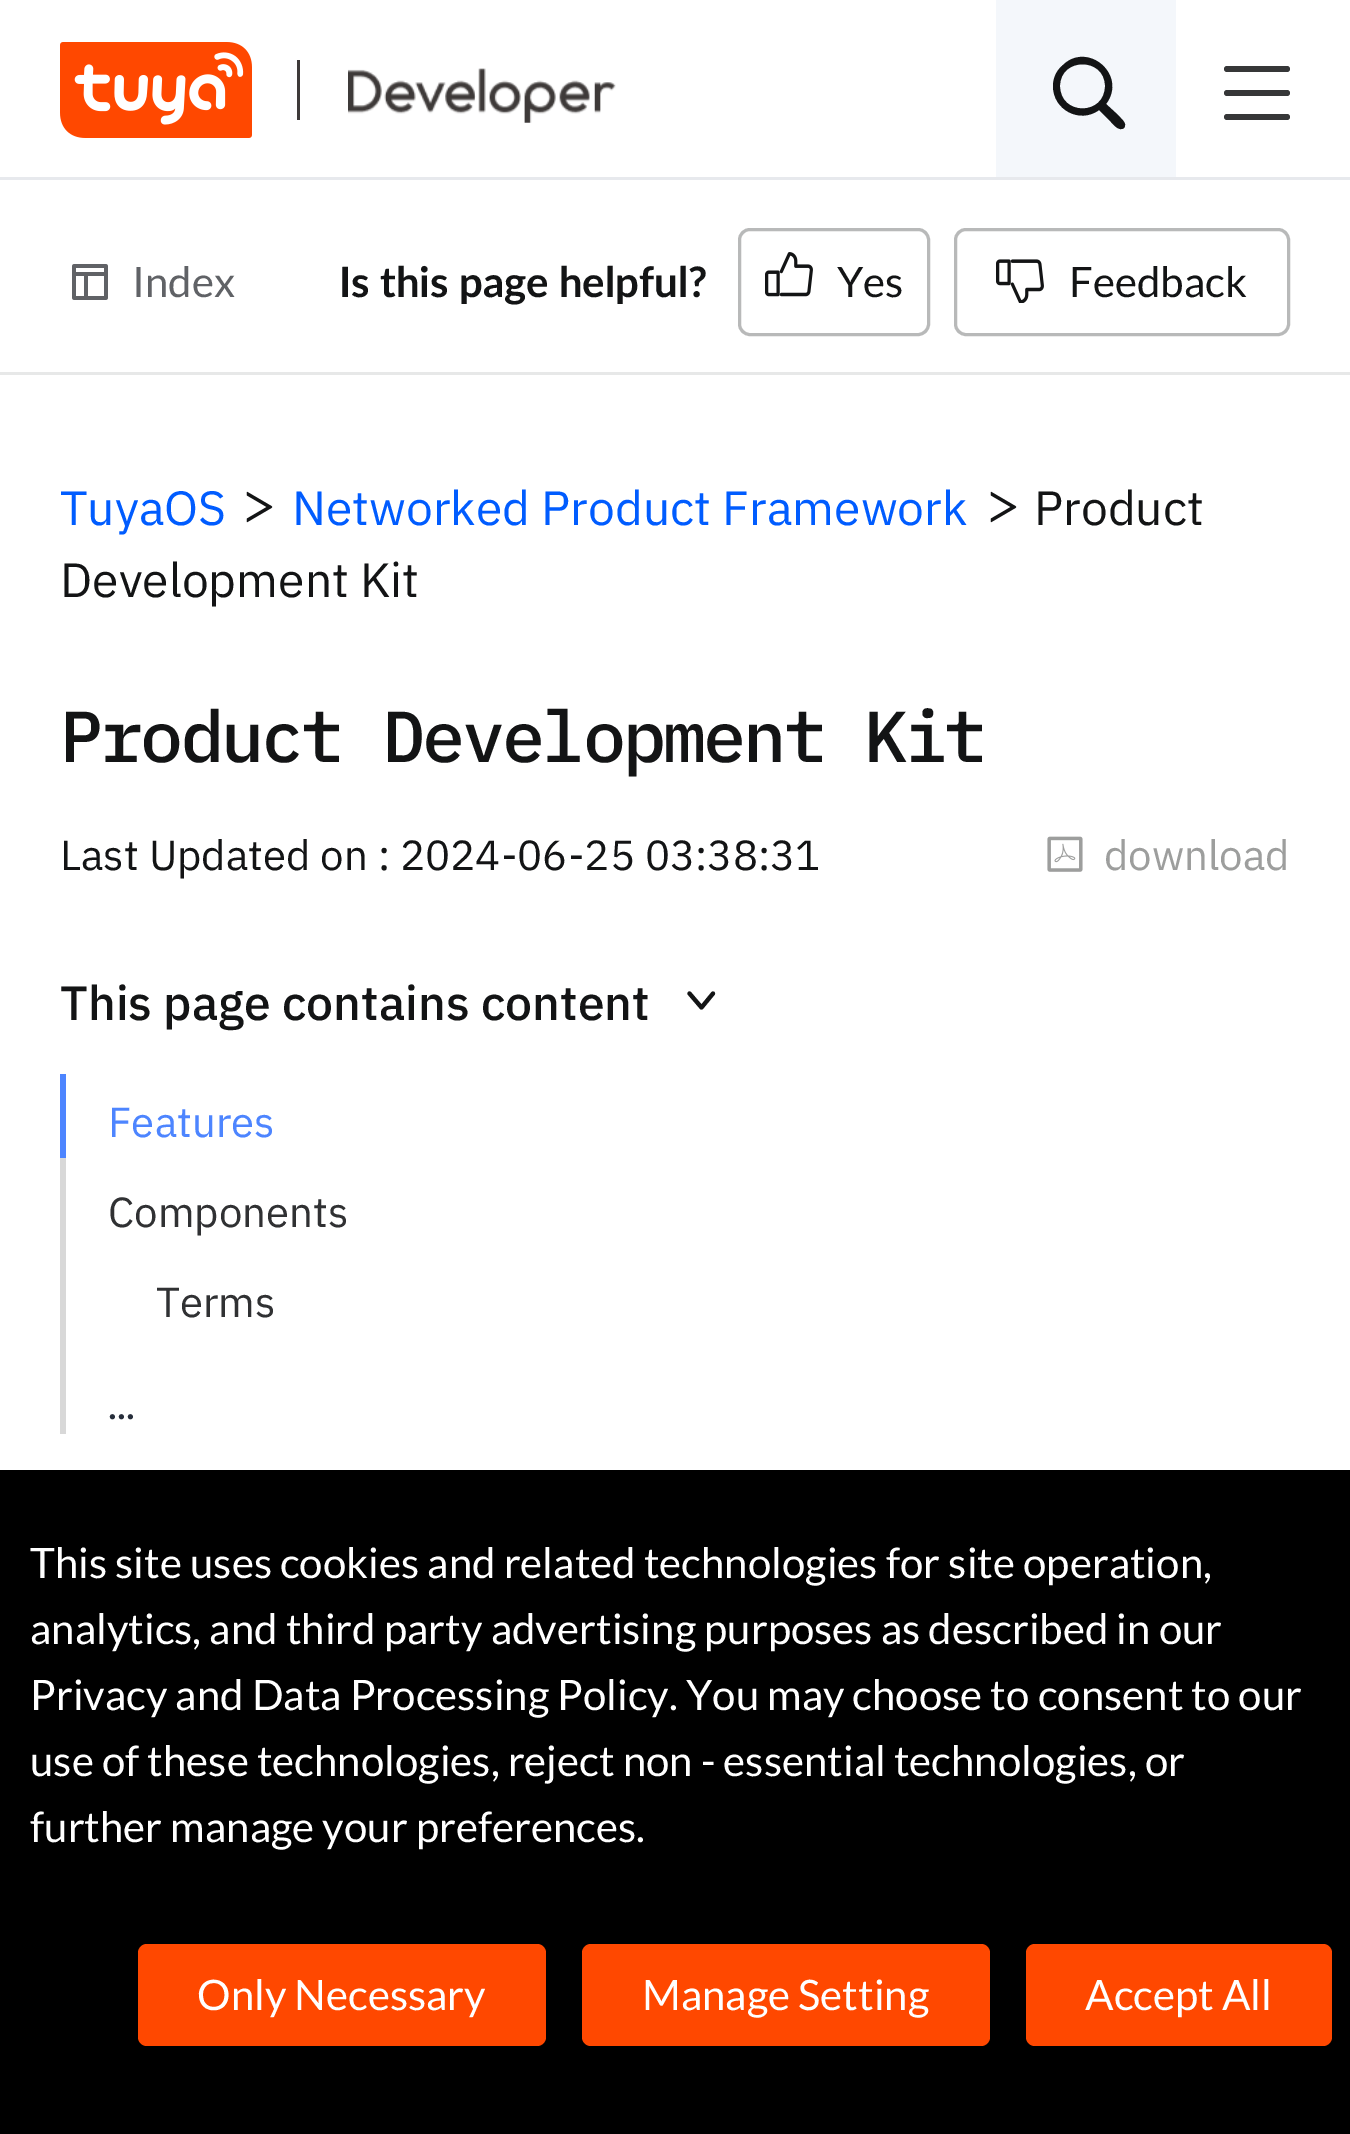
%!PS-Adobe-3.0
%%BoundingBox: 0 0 1350 2134
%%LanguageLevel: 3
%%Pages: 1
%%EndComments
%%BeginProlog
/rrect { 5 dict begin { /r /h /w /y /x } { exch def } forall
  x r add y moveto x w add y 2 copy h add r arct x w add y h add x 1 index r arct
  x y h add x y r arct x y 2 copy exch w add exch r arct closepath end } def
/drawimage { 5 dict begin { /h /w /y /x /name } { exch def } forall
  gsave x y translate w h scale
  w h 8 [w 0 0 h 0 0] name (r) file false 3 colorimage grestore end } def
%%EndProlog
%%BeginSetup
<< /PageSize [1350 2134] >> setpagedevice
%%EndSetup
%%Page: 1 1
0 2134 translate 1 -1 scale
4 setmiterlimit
1 setgray
0 0 1350 2134 rectfill
(images/1.raw) 60 42 192 96 drawimage
0.243 0.227 0.224 setrgbcolor
297 60 3 60 rectfill
(images/2.raw) 348 68 268 55 drawimage
0.957 0.969 0.984 setrgbcolor
996 0 180 177 rectfill
0.075 0.078 0.082 setrgbcolor
newpath 1053 86 moveto 1053 110 1080 124 1099 110 curveto 1111 122 lineto 1113 124 1119 132 1124 128 curveto 1128 123 1120 118 1118 115 curveto 1106 104 lineto 1128 75 1087 40 1062 66 curveto 1056 71 1053 79 1053 86 curveto closepath 1060 86 moveto 1060 57 1105 57 1105 86 curveto 1105 116 1060 116 1060 86 curveto closepath fill
0.212 0.216 0.22 setrgbcolor
1224 66 66 6 3 rrect fill
1224 90 66 6 3 rrect fill
1224 114 66 6 3 rrect fill
0.906 0.914 0.929 setrgbcolor
0 177 1350 3 rectfill
0.906 0.91 0.91 setrgbcolor
0 372 1350 3 rectfill
(images/3.raw) 72 264 36 36 drawimage
0.722 0.725 0.725 setrgbcolor
3 setlinewidth
739.5 229.5 189 105 10.5 rrect stroke
(images/4.raw) 765 252 48 45 drawimage
955.5 229.5 333 105 10.5 rrect stroke
(images/5.raw) 996 259 48 44 drawimage
(images/6.raw) 246 491 27 32 drawimage
(images/6.raw) 990 491 27 32 drawimage
(images/7.raw) 1047 836 36 36 drawimage
0.075 0.078 0.082 setrgbcolor
4.1 setlinewidth
1 setlinecap
1 setlinejoin
newpath 713 993.5 moveto 701.5 1007.5 lineto 689.5 993.5 lineto stroke
0.302 0.522 1 setrgbcolor
60 1074 6 84 rectfill
0.847 setgray
60 1158 6 276 rectfill
0 setgray
0 1470 1350 664 rectfill
1 0.282 0 setrgbcolor
138 1944 408 102 9 rrect fill
582 1944 408 102 9 rrect fill
1026 1944 306 102 9 rrect fill
/Lato-Regular [42 0 0 -42 0 0] selectfont
0.376 0.384 0.4 setrgbcolor
132 297 moveto (Index) show
/Lato-Bold [42 0 0 -42 0 0] selectfont
0.075 0.078 0.082 setrgbcolor
339 297 moveto (Is this page helpful?) show
/Lato-Regular [42 0 0 -42 0 0] selectfont
837 297 moveto (Yes) show
1069 297 moveto (Feedback) show
/IBMPlexSans-Regular [48 0 0 -48 0 0] selectfont
0 0.361 1 setrgbcolor
60 525 moveto (TuyaOS) show
292 525 moveto (Networked Product Framework) show
0.075 0.078 0.082 setrgbcolor
1034 525 moveto (Product) show
60 597 moveto (Development Kit) show
/IBMPlexMono-Medium [72 0 0 -72 0 0] selectfont
60 762 moveto -3 0 (Product Development Kit) ashow
/IBMPlexSans-Regular [42 0 0 -42 0 0] selectfont
60 870 moveto (Last Updated on : 2024-06-25 03:38:31) show
0.616 0.62 0.616 setrgbcolor
1104 870 moveto (download) show
/IBMPlexSans-Medium [48 0 0 -48 0 0] selectfont
0.075 0.078 0.082 setrgbcolor
60 1020 moveto (This page contains content) show
/IBMPlexSans-Regular [42 0 0 -42 0 0] selectfont
0.302 0.522 1 setrgbcolor
108 1137 moveto (Features) show
0.188 0.192 0.2 setrgbcolor
108 1227 moveto (Components) show
156 1317 moveto (Terms) show
/Lato-Regular [42 0 0 -42 0 0] selectfont
0.153 0.18 0.231 setrgbcolor
108 1419 moveto (...) show
1 setgray
30 1578 moveto (This site uses cookies and related technologies for site operation,) show
30 1644 moveto (analytics, and third party advertising purposes as described in our) show
30 1710 moveto (Privacy and Data Processing Policy. You may choose to consent to our) show
30 1776 moveto (use of these technologies, reject non - essential technologies, or) show
30 1842 moveto (further manage your preferences.) show
197 2010 moveto (Only Necessary) show
642 2010 moveto (Manage Setting) show
1085 2010 moveto (Accept All) show
showpage
%%EOF
